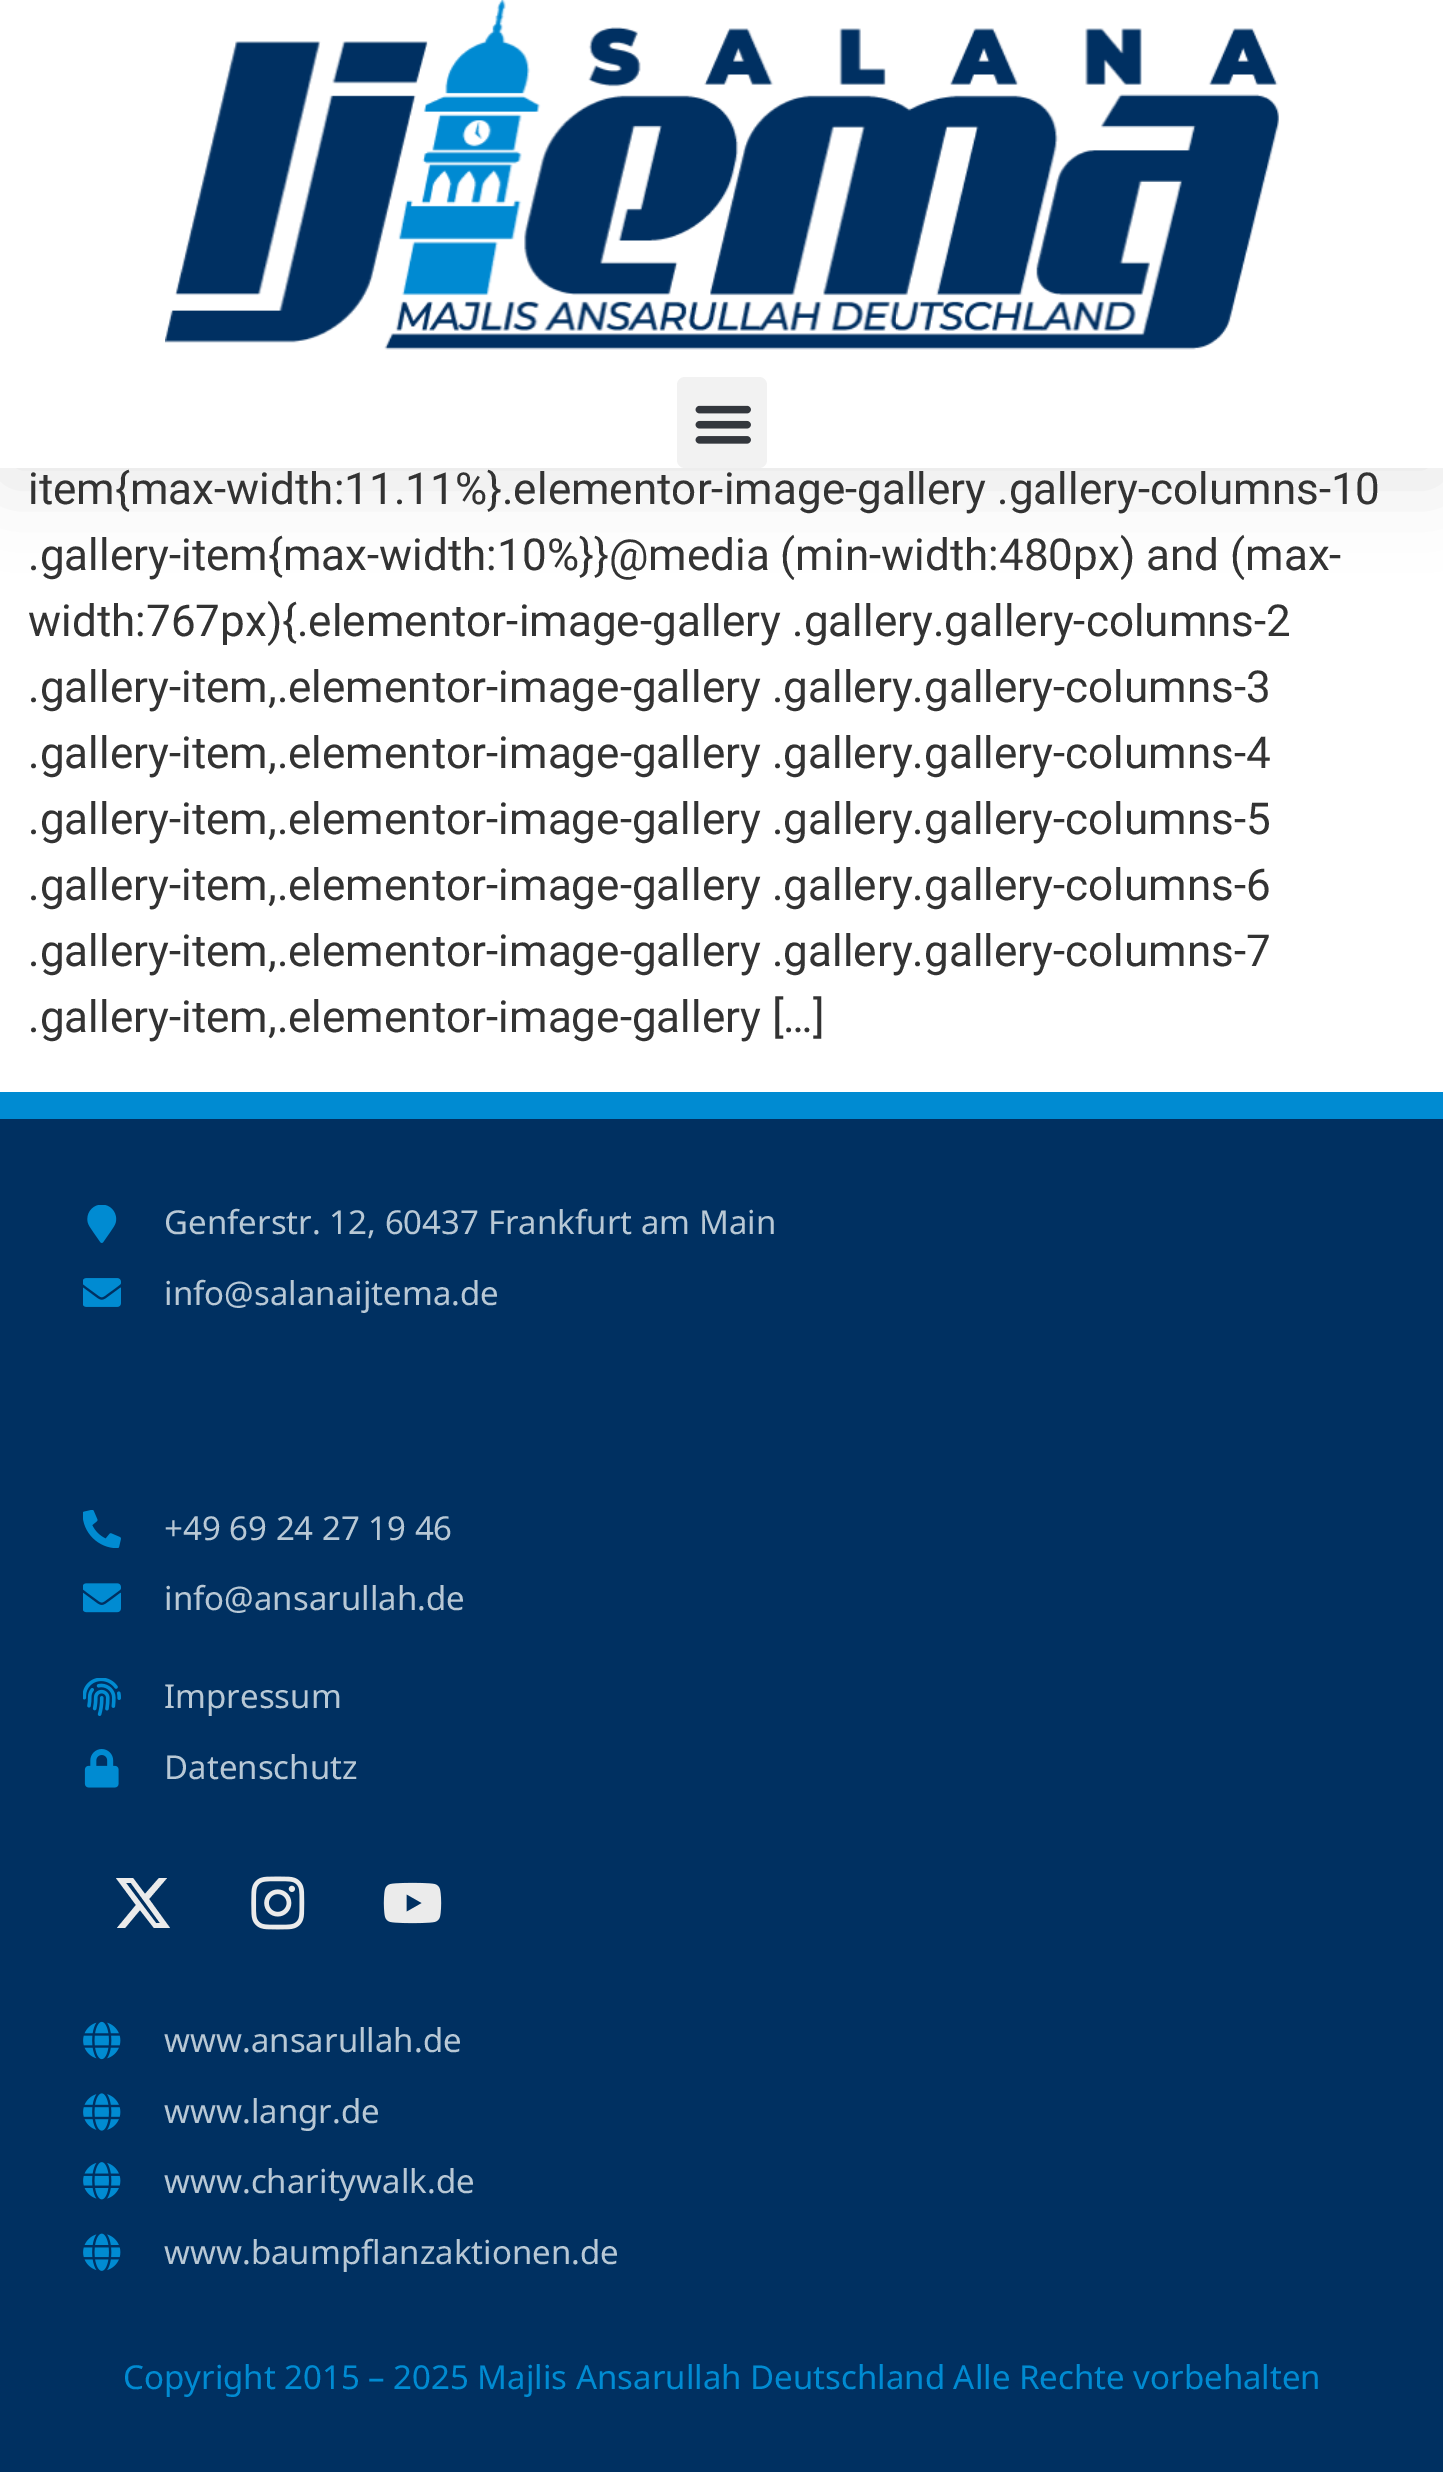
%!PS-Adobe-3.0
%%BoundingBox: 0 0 1443 2472
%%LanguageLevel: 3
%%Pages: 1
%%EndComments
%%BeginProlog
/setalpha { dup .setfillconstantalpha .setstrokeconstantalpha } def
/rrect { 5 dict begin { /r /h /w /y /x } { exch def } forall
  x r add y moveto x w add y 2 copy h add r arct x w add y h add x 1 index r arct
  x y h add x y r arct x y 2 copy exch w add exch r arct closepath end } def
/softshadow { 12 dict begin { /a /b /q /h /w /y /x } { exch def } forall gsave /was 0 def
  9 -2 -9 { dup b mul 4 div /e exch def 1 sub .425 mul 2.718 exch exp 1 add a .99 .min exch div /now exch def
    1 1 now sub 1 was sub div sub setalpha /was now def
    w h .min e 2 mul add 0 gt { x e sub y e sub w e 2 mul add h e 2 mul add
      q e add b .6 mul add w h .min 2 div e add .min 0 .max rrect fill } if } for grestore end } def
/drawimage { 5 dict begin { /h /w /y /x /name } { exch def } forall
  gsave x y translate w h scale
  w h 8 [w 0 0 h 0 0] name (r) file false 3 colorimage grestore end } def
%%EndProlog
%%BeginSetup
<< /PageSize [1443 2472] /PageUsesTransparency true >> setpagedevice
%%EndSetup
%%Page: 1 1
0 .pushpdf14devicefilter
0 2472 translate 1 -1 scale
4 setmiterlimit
1 setgray
0 0 1443 2472 rectfill
0 setgray
0 14 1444 467 0 41 0.1 softshadow
1 setgray
0 0 1443 468 rectfill
(images/1.raw) 165 0 1114 350 drawimage
0.949 setgray
677 377 90 91 8 rrect fill
(images/2.raw) 695 405 56 39 drawimage
0 0.188 0.38 setrgbcolor
0 1119 1443 1353 rectfill
0 0.545 0.824 setrgbcolor
0 1092 1443 27 rectfill
(images/3.raw) 87 1205 30 38 drawimage
(images/4.raw) 83 1278 38 29 drawimage
(images/5.raw) 83 1510 38 38 drawimage
(images/6.raw) 83 1583 38 30 drawimage
(images/7.raw) 83 1678 38 38 drawimage
(images/8.raw) 84 1749 35 39 drawimage
0.922 setgray
newpath 159 1878 moveto 167 1878 lineto 149 1899 lineto 170 1928 lineto 154 1928 lineto 140 1910 lineto 125 1928 lineto 117 1928 lineto 136 1905 lineto 116 1878 lineto 133 1878 lineto 145 1894 lineto closepath 156 1923 moveto 160 1923 lineto 131 1883 lineto 126 1883 lineto closepath fill
(images/9.raw) 251 1876 54 54 drawimage
(images/10.raw) 383 1882 59 42 drawimage
(images/11.raw) 83 2021 38 39 drawimage
(images/12.raw) 83 2093 38 38 drawimage
(images/13.raw) 83 2162 38 38 drawimage
(images/14.raw) 83 2233 38 38 drawimage
/Roboto-Regular [44 0 0 -44 0 0] selectfont
0.2 setgray
28 504 moveto (item{max-width:11.11%}.elementor-image-gallery .gallery-columns-10) show
28 570 moveto (.gallery-item{max-width:10%}}@media \(min-width:480px\) and \(max-) show
28 636 moveto (width:767px\){.elementor-image-gallery .gallery.gallery-columns-2) show
28 702 moveto (.gallery-item,.elementor-image-gallery .gallery.gallery-columns-3) show
28 768 moveto (.gallery-item,.elementor-image-gallery .gallery.gallery-columns-4) show
28 834 moveto (.gallery-item,.elementor-image-gallery .gallery.gallery-columns-5) show
28 900 moveto (.gallery-item,.elementor-image-gallery .gallery.gallery-columns-6) show
28 966 moveto (.gallery-item,.elementor-image-gallery .gallery.gallery-columns-7) show
28 1032 moveto (.gallery-item,.elementor-image-gallery […]) show
/NotoSans-Regular [33 0 0 -33 0 0] selectfont
0.722 0.784 0.835 setrgbcolor
164 1234 moveto (Genferstr. 12, 60437 Frankfurt am Main) show
164 1305 moveto (info@salanaijtema.de) show
164 1540 moveto (+49 69 24 27 19 46) show
164 1610 moveto (info@ansarullah.de) show
164 1708 moveto (Impressum) show
164 1779 moveto (Datenschutz) show
164 2052 moveto (www.ansarullah.de) show
164 2123 moveto (www.langr.de) show
164 2193 moveto (www.charitywalk.de) show
164 2264 moveto (www.baumpflanzaktionen.de) show
0 0.545 0.824 setrgbcolor
123 2389 moveto (Copyright 2015 – 2025 Majlis Ansarullah Deutschland Alle Rechte vorbehalten) show
.poppdf14devicefilter showpage
%%EOF
